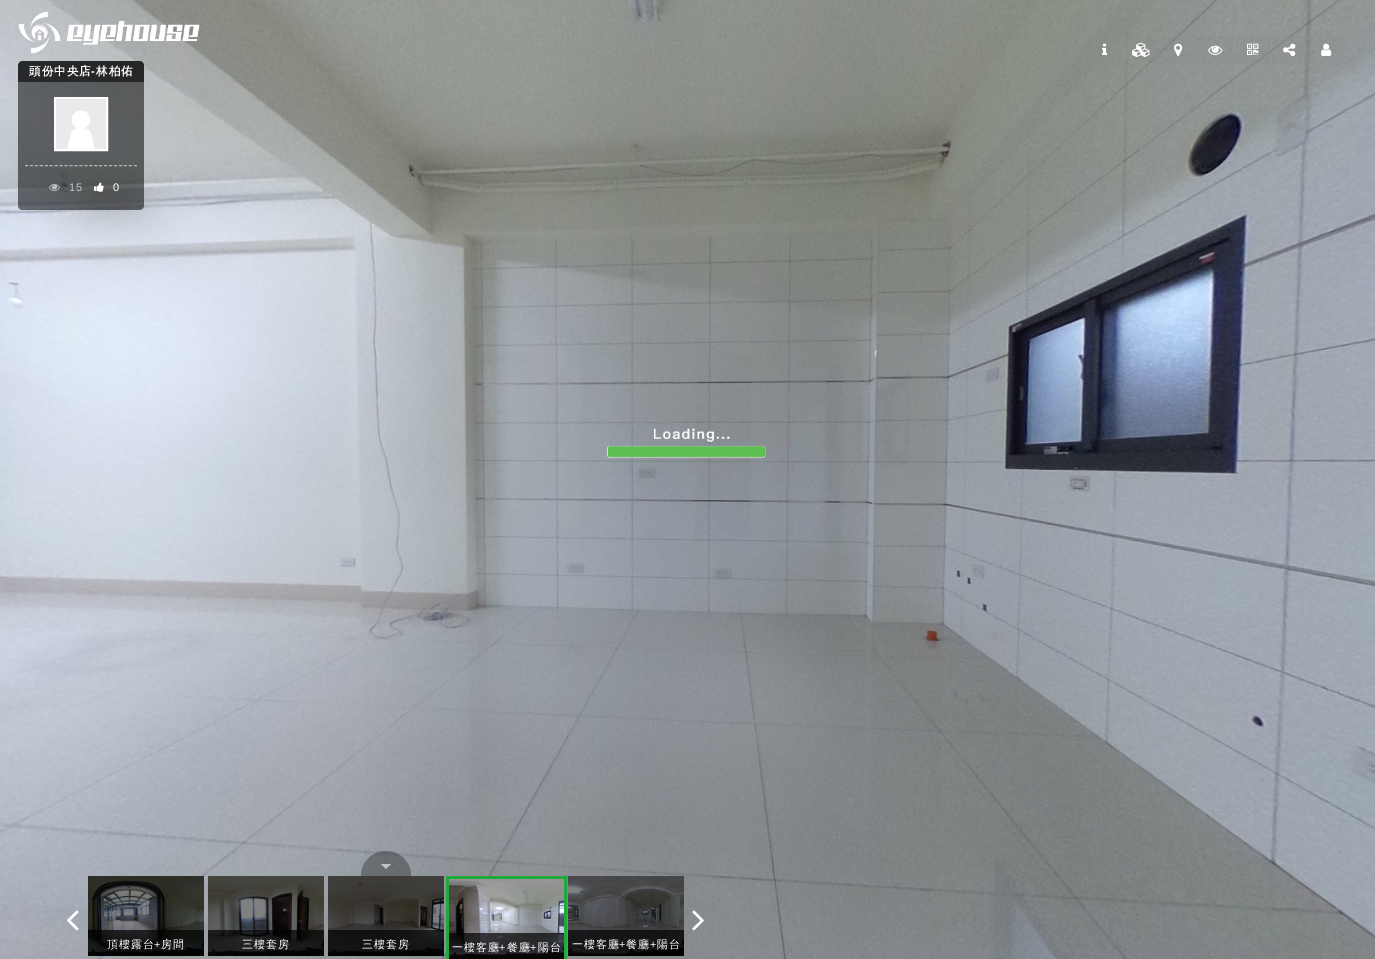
%!PS-Adobe-3.0
%%BoundingBox: 0 0 1375 959
%%LanguageLevel: 3
%%Pages: 1
%%EndComments
%%BeginProlog
/setalpha { dup .setfillconstantalpha .setstrokeconstantalpha } def
/drawimage { 5 dict begin { /h /w /y /x /name } { exch def } forall
  gsave x y translate w h scale
  w h 8 [w 0 0 h 0 0] name (r) file false 3 colorimage grestore end } def
%%EndProlog
%%BeginSetup
<< /PageSize [1375 959] /PageUsesTransparency true >> setpagedevice
%%EndSetup
%%Page: 1 1
0 .pushpdf14devicefilter
0 959 translate 1 -1 scale
4 setmiterlimit
1 setgray
0 0 1375 959 rectfill
(images/1.raw) 0 0 1375 959 drawimage
(images/2.raw) 18 11 182 43 drawimage
0.2 setalpha
0.537 setgray
newpath 1089 36 moveto 1123 36 lineto 1123 64 lineto 1089 64 lineto 1088 64 1087 63 1087 62 curveto 1087 38 lineto 1087 37 1088 36 1089 36 curveto closepath fill
1 setalpha
(images/3.raw) 1102 43 6 12 drawimage
0.2 setalpha
1144 40 16 22 rectfill
1 setalpha
(images/4.raw) 1132 42 18 15 drawimage
0.2 setalpha
1161 36 36 28 rectfill
1 setalpha
(images/5.raw) 1174 43 9 13 drawimage
0.2 setalpha
1198 36 36 28 rectfill
1 setalpha
(images/6.raw) 1208 45 15 10 drawimage
0.2 setalpha
1235 36 36 28 rectfill
1 setalpha
(images/7.raw) 1247 43 12 12 drawimage
0.2 setalpha
1272 36 33 28 rectfill
1 setalpha
(images/8.raw) 1283 43 13 13 drawimage
0.2 setalpha
newpath 1309 36 moveto 1343 36 lineto 1344 36 1345 37 1345 38 curveto 1345 62 lineto 1345 63 1344 64 1343 64 curveto 1309 64 lineto closepath fill
1 setalpha
(images/9.raw) 1321 43 11 13 drawimage
0.8 setalpha
0 setgray
newpath 23 61 moveto 139 61 lineto 142 61 144 63 144 66 curveto 144 82 lineto 18 82 lineto 18 66 lineto 18 63 20 61 23 61 curveto closepath fill
0.53 setalpha
newpath 18 82 moveto 144 82 lineto 144 205 lineto 144 208 142 210 139 210 curveto 23 210 lineto 20 210 18 208 18 205 curveto closepath fill
1 setalpha
1 setgray
2 setlinewidth
55 98 52 52 rectstroke
(images/10.raw) 56 99 50 50 drawimage
0.71 setgray
1 setlinewidth
[3 1.95] 0 setdash
newpath 25 165.5 moveto 137 165.5 lineto stroke
(images/11.raw) 49 184 11 7 drawimage
(images/12.raw) 94 182 10 10 drawimage
0.3 setalpha
0 setgray
newpath 386 876 25 0 360 arc closepath fill
0.6 setalpha
1 setgray
newpath 381 864 moveto 391 864 lineto 386 869 lineto closepath fill
1 setalpha
(images/13.raw) 67 910 12 21 drawimage
(images/14.raw) 692 910 12 21 drawimage
(images/15.raw) 88 876 116 80 drawimage
0.7 setalpha
0 setgray
88 930 116 26 rectfill
1 setalpha
(images/16.raw) 208 876 116 80 drawimage
0.7 setalpha
208 930 116 26 rectfill
1 setalpha
(images/17.raw) 328 876 116 80 drawimage
0.7 setalpha
328 930 116 26 rectfill
1 setalpha
0.122 0.667 0.231 setrgbcolor
3 setlinewidth
[] 0 setdash
447.5 877.5 118 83 rectstroke
(images/18.raw) 449 879 115 80 drawimage
0.7 setalpha
0 setgray
449 933 115 26 rectfill
1 setalpha
(images/19.raw) 568 876 116 80 drawimage
0.7 setalpha
568 930 116 26 rectfill
1 setalpha
(images/20.raw) 607 428 159 30 drawimage
/WenQuanYiZenHei-Bold [11.5 0 0 -11.5 0 0] selectfont
1 setgray
29 75 moveto 1 0 (頭份中央店) ashow
/LiberationSans-Bold [11.5 0 0 -11.5 0 0] selectfont
91 75 moveto 1 0 (-) ashow
/WenQuanYiZenHei-Bold [11.5 0 0 -11.5 0 0] selectfont
96 75 moveto 1 0 (林柏佑) ashow
/LiberationSans-Regular [11 0 0 -11 0 0] selectfont
0.769 setgray
69 191 moveto 1 0 (15) ashow
1 setgray
113 191 moveto 1 0 (0) ashow
/WenQuanYiZenHei-Medium [11 0 0 -11 0 0] selectfont
107 948 moveto 1 0 (頂樓露台) ashow
/LiberationSans-Regular [11 0 0 -11 0 0] selectfont
154 948 moveto 1 0 (+) ashow
/WenQuanYiZenHei-Medium [11 0 0 -11 0 0] selectfont
161 948 moveto 1 0 (房間) ashow
242 948 moveto 1 0 (三樓套房) ashow
362 948 moveto 1 0 (三樓套房) ashow
452 951 moveto 1 0 (一樓客廳) ashow
/LiberationSans-Regular [11 0 0 -11 0 0] selectfont
499 951 moveto 1 0 (+) ashow
/WenQuanYiZenHei-Medium [11 0 0 -11 0 0] selectfont
507 951 moveto 1 0 (餐廳) ashow
/LiberationSans-Regular [11 0 0 -11 0 0] selectfont
530 951 moveto 1 0 (+) ashow
/WenQuanYiZenHei-Medium [11 0 0 -11 0 0] selectfont
538 951 moveto 1 0 (陽台) ashow
572 948 moveto 1 0 (一樓客廳) ashow
/LiberationSans-Regular [11 0 0 -11 0 0] selectfont
619 948 moveto 1 0 (+) ashow
/WenQuanYiZenHei-Medium [11 0 0 -11 0 0] selectfont
626 948 moveto 1 0 (餐廳) ashow
/LiberationSans-Regular [11 0 0 -11 0 0] selectfont
650 948 moveto 1 0 (+) ashow
/WenQuanYiZenHei-Medium [11 0 0 -11 0 0] selectfont
657 948 moveto 1 0 (陽台) ashow
.poppdf14devicefilter showpage
%%EOF
